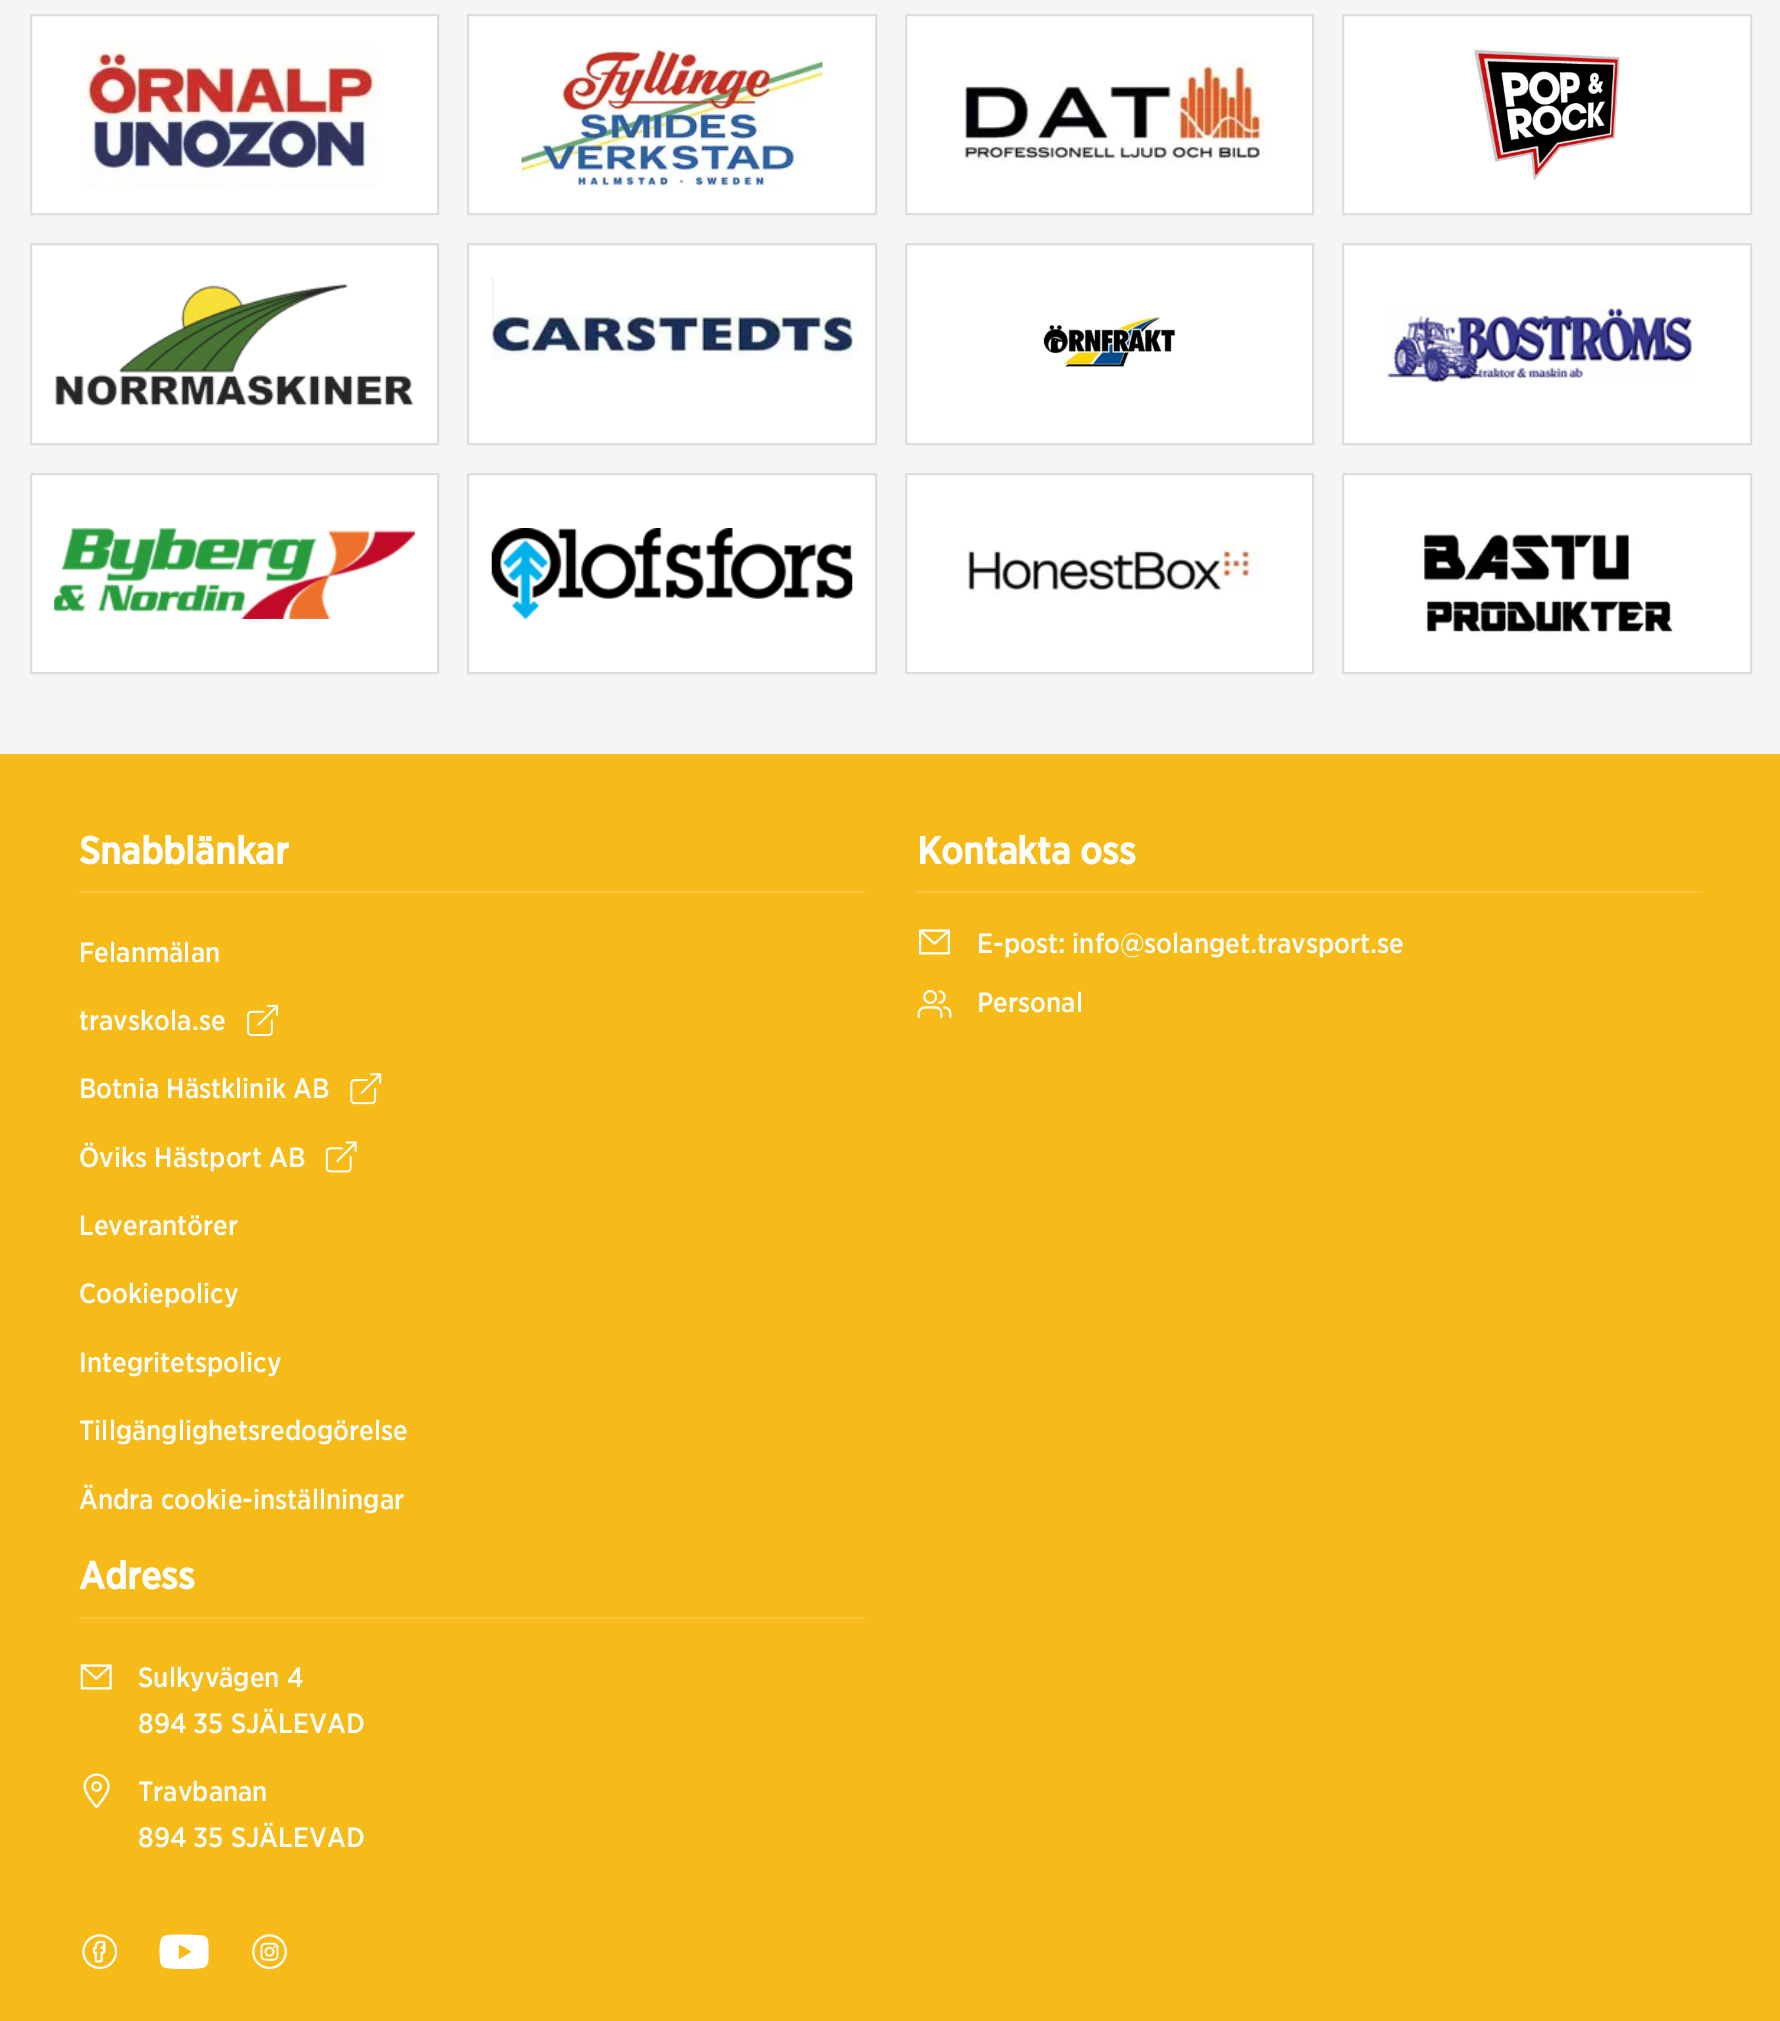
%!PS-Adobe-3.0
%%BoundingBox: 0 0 1780 2021
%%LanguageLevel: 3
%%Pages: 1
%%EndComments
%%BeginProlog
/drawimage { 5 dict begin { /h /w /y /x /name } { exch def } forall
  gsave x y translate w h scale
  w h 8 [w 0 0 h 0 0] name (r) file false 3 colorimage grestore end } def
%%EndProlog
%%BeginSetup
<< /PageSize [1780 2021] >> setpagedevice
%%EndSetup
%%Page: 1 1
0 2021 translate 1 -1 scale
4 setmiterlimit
0.965 0.733 0.094 setrgbcolor
0 0 1780 2021 rectfill
0.961 setgray
0 0 1780 754 rectfill
1 setgray
newpath 31 15 moveto 438 15 lineto 438 214 lineto 31 214 lineto closepath gsave fill grestore
0.867 setgray
2 setlinewidth
stroke
(images/1.raw) 82 42 295 146 drawimage
1 setgray
newpath 468 15 moveto 876 15 lineto 876 214 lineto 468 214 lineto closepath gsave fill grestore
0.867 setgray
stroke
(images/2.raw) 521 46 302 141 drawimage
1 setgray
newpath 906 15 moveto 1313 15 lineto 1313 214 lineto 906 214 lineto closepath gsave fill grestore
0.867 setgray
stroke
(images/3.raw) 964 58 302 104 drawimage
1 setgray
newpath 1343 15 moveto 1751 15 lineto 1751 214 lineto 1343 214 lineto closepath gsave fill grestore
0.867 setgray
stroke
(images/4.raw) 1474 49 146 132 drawimage
1 setgray
newpath 31 244 moveto 438 244 lineto 438 444 lineto 31 444 lineto closepath gsave fill grestore
0.867 setgray
stroke
(images/5.raw) 55 284 359 122 drawimage
1 setgray
newpath 468 244 moveto 876 244 lineto 876 444 lineto 468 444 lineto closepath gsave fill grestore
0.867 setgray
stroke
(images/6.raw) 491 276 362 84 drawimage
1 setgray
newpath 906 244 moveto 1313 244 lineto 1313 444 lineto 906 444 lineto closepath gsave fill grestore
0.867 setgray
stroke
(images/7.raw) 1043 315 133 52 drawimage
1 setgray
newpath 1343 244 moveto 1751 244 lineto 1751 444 lineto 1343 444 lineto closepath gsave fill grestore
0.867 setgray
stroke
(images/8.raw) 1386 308 307 75 drawimage
1 setgray
newpath 31 474 moveto 438 474 lineto 438 673 lineto 31 673 lineto closepath gsave fill grestore
0.867 setgray
stroke
(images/9.raw) 54 528 361 91 drawimage
1 setgray
newpath 468 474 moveto 876 474 lineto 876 673 lineto 468 673 lineto closepath gsave fill grestore
0.867 setgray
stroke
(images/10.raw) 491 528 362 91 drawimage
1 setgray
newpath 906 474 moveto 1313 474 lineto 1313 673 lineto 906 673 lineto closepath gsave fill grestore
0.867 setgray
stroke
(images/11.raw) 967 543 291 51 drawimage
1 setgray
newpath 1343 474 moveto 1751 474 lineto 1751 673 lineto 1343 673 lineto closepath gsave fill grestore
0.867 setgray
stroke
(images/12.raw) 1421 534 254 99 drawimage
0.969 0.773 0.231 setrgbcolor
79 891 786 2 rectfill
(images/13.raw) 247 1004 31 32 drawimage
(images/14.raw) 350 1073 32 32 drawimage
(images/15.raw) 325 1141 32 32 drawimage
917 891 786 2 rectfill
(images/16.raw) 919 929 31 26 drawimage
(images/17.raw) 917 990 35 29 drawimage
79 1617 786 2 rectfill
(images/18.raw) 80 1664 32 26 drawimage
(images/19.raw) 83 1773 27 35 drawimage
(images/20.raw) 82 1934 36 36 drawimage
(images/21.raw) 159 1934 50 36 drawimage
(images/22.raw) 252 1934 35 36 drawimage
/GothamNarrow-Bold [38.5 0 0 -38.5 0 0] selectfont
1 setgray
79 864 moveto (Snabblänkar) show
/GothamNarrow-Medium [28 0 0 -28 0 0] selectfont
79 962 moveto (Felanmälan) show
79 1030 moveto (travskola.se) show
79 1098 moveto (Botnia Hästklinik AB) show
79 1167 moveto (Öviks Hästport AB) show
79 1235 moveto (Leverantörer) show
79 1303 moveto (Cookiepolicy) show
79 1372 moveto (Integritetspolicy) show
79 1440 moveto (Tillgänglighetsredogörelse) show
79 1509 moveto (Ändra cookie-inställningar) show
/GothamNarrow-Bold [38.5 0 0 -38.5 0 0] selectfont
917 864 moveto (Kontakta oss) show
/GothamNarrow-Medium [28 0 0 -28 0 0] selectfont
977 953 moveto (E-post: info@solanget.travsport.se) show
977 1012 moveto (Personal) show
/GothamNarrow-Bold [38.5 0 0 -38.5 0 0] selectfont
79 1589 moveto (Adress) show
/GothamNarrow-Medium [28 0 0 -28 0 0] selectfont
138 1687 moveto (Sulkyvägen 4) show
138 1733 moveto (894 35 SJÄLEVAD) show
138 1801 moveto (Travbanan) show
138 1847 moveto (894 35 SJÄLEVAD) show
showpage
%%EOF
